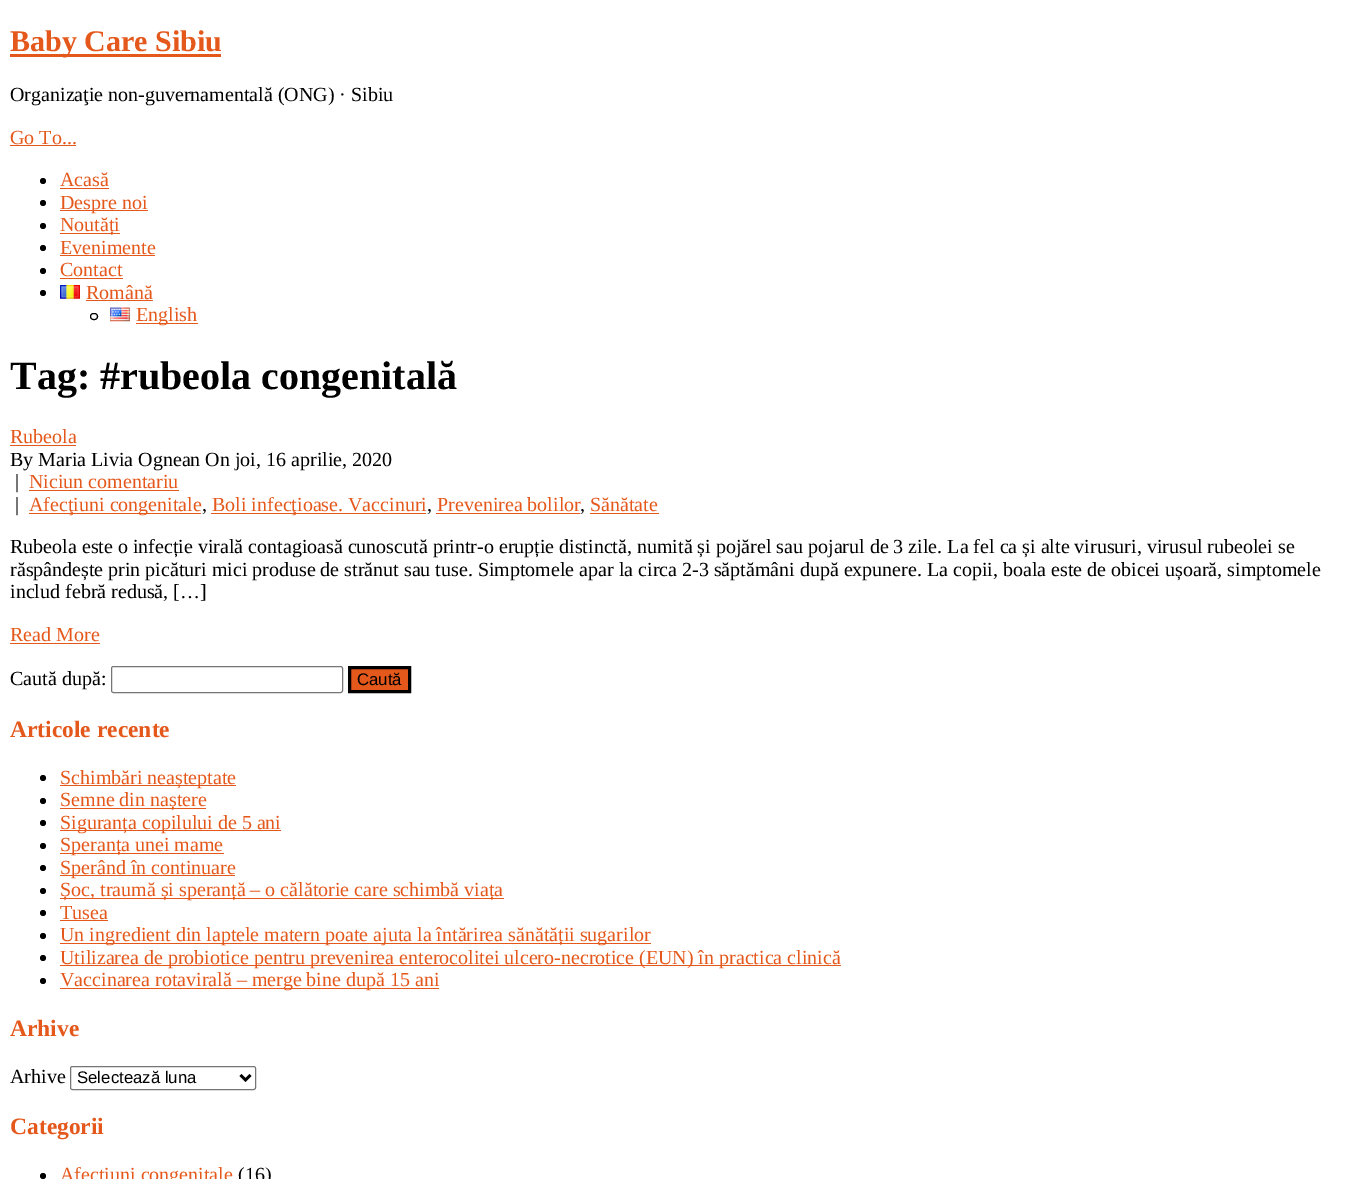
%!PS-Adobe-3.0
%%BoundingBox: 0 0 1371 1179
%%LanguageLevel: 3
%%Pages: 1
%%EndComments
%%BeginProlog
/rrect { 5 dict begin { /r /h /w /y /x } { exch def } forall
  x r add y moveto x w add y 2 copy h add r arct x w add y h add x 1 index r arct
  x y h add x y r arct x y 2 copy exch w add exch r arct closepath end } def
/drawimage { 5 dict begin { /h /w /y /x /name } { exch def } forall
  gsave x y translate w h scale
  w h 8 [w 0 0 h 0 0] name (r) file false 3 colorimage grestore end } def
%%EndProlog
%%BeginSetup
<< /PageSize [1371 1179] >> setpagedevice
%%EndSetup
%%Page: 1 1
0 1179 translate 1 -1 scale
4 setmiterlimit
1 setgray
0 0 1371 1179 rectfill
0.898 0.345 0.106 setrgbcolor
10 54 211 3 rectfill
10 145 66 1 rectfill
0 setgray
newpath 43 181 3 0 360 arc closepath fill
0.898 0.345 0.106 setrgbcolor
60 188 49 1 rectfill
0 setgray
newpath 43 203 3 0 360 arc closepath fill
0.898 0.345 0.106 setrgbcolor
60 210 88 1 rectfill
0 setgray
newpath 43 226 3 0 360 arc closepath fill
0.898 0.345 0.106 setrgbcolor
60 233 60 1 rectfill
0 setgray
newpath 43 248 3 0 360 arc closepath fill
0.898 0.345 0.106 setrgbcolor
60 255 95 1 rectfill
0 setgray
newpath 43 271 3 0 360 arc closepath fill
0.898 0.345 0.106 setrgbcolor
60 278 63 1 rectfill
0 setgray
newpath 43 293 3 0 360 arc closepath fill
(images/1.raw) 60 285 20 14 drawimage
0.898 0.345 0.106 setrgbcolor
86 300 67 1 rectfill
0 setgray
90.5 313.5 7 6 3 rrect stroke
(images/2.raw) 110 307 20 15 drawimage
0.898 0.345 0.106 setrgbcolor
136 323 62 1 rectfill
10 445 66 1 rectfill
29 490 150 1 rectfill
29 513 172 1 rectfill
211 513 215 1 rectfill
436 513 144 1 rectfill
590 513 69 1 rectfill
10 643 90 1 rectfill
0.463 setgray
111.5 666.5 231 26 2 rrect stroke
0.898 0.345 0.106 setrgbcolor
newpath 349.5 667.5 moveto 409.5 667.5 lineto 409.5 691.5 lineto 349.5 691.5 lineto closepath gsave fill grestore
0 setgray
3 setlinewidth
stroke
newpath 43 778 3 0 360 arc closepath fill
0.898 0.345 0.106 setrgbcolor
60 785 176 1 rectfill
0 setgray
newpath 43 801 3 0 360 arc closepath fill
0.898 0.345 0.106 setrgbcolor
60 808 146 1 rectfill
0 setgray
newpath 43 823 3 0 360 arc closepath fill
0.898 0.345 0.106 setrgbcolor
60 830 221 1 rectfill
0 setgray
newpath 43 846 3 0 360 arc closepath fill
0.898 0.345 0.106 setrgbcolor
60 853 164 1 rectfill
0 setgray
newpath 43 868 3 0 360 arc closepath fill
0.898 0.345 0.106 setrgbcolor
60 875 175 1 rectfill
0 setgray
newpath 43 891 3 0 360 arc closepath fill
0.898 0.345 0.106 setrgbcolor
60 898 444 1 rectfill
0 setgray
newpath 43 913 3 0 360 arc closepath fill
0.898 0.345 0.106 setrgbcolor
60 920 48 1 rectfill
0 setgray
newpath 43 936 3 0 360 arc closepath fill
0.898 0.345 0.106 setrgbcolor
60 943 591 1 rectfill
0 setgray
newpath 43 958 3 0 360 arc closepath fill
0.898 0.345 0.106 setrgbcolor
60 965 781 1 rectfill
0 setgray
newpath 43 981 3 0 360 arc closepath fill
0.898 0.345 0.106 setrgbcolor
60 988 379 1 rectfill
0.463 setgray
1 setlinewidth
70.5 1066.5 185 23 2 rrect stroke
0 setgray
2.5 setlinewidth
newpath 240.5 1075 moveto 245.5 1080 lineto 250.5 1075 lineto stroke
newpath 43 1176 3 0 360 arc closepath fill
/LiberationSerif-Bold [30 0 0 -30 0 0] selectfont
0.898 0.345 0.106 setrgbcolor
10 51 moveto (Baby Care Sibiu) show
/LiberationSerif-Regular [20 0 0 -20 0 0] selectfont
0 setgray
10 101 moveto (Organizaţie non-guvernamentală \(ONG\) · Sibiu) show
0.898 0.345 0.106 setrgbcolor
10 144 moveto (Go To...) show
60 186 moveto (Acasă) show
60 209 moveto (Despre noi) show
60 231 moveto (Noutăți) show
60 254 moveto (Evenimente) show
60 276 moveto (Contact) show
86 299 moveto (Română) show
136 321 moveto (English) show
/LiberationSerif-Bold [40 0 0 -40 0 0] selectfont
0 setgray
10 389 moveto (Tag: #rubeola congenitală) show
/LiberationSerif-Regular [20 0 0 -20 0 0] selectfont
0.898 0.345 0.106 setrgbcolor
10 443 moveto (Rubeola) show
0 setgray
10 466 moveto (By Maria Livia Ognean On joi, 16 aprilie, 2020) show
15 488 moveto (|) show
0.898 0.345 0.106 setrgbcolor
29 488 moveto (Niciun comentariu) show
0 setgray
15 511 moveto (|) show
0.898 0.345 0.106 setrgbcolor
29 511 moveto (Afecţiuni congenitale) show
0 setgray
202 511 moveto (,) show
0.898 0.345 0.106 setrgbcolor
212 511 moveto (Boli infecţioase. Vaccinuri) show
0 setgray
427 511 moveto (,) show
0.898 0.345 0.106 setrgbcolor
437 511 moveto (Prevenirea bolilor) show
0 setgray
580 511 moveto (,) show
0.898 0.345 0.106 setrgbcolor
590 511 moveto (Sănătate) show
0 setgray
10 553 moveto (Rubeola este o infecție virală contagioasă cunoscută printr-o erupție distinctă, numită și pojărel sau pojarul de 3 zile. La fel ca și alte virusuri, virusul rubeolei se) show
10 576 moveto (răspândește prin picături mici produse de strănut sau tuse. Simptomele apar la circa 2-3 săptămâni după expunere. La copii, boala este de obicei ușoară, simptomele) show
10 598 moveto (includ febră redusă, […]) show
0.898 0.345 0.106 setrgbcolor
10 641 moveto (Read More) show
0 setgray
10 685 moveto (Caută după:) show
/LiberationSans-Regular [16.75 0 0 -16.75 0 0] selectfont
357 685 moveto (Caută) show
/LiberationSerif-Bold [23.5 0 0 -23.5 0 0] selectfont
0.898 0.345 0.106 setrgbcolor
10 737 moveto (Articole recente) show
/LiberationSerif-Regular [20 0 0 -20 0 0] selectfont
60 784 moveto (Schimbări neașteptate) show
60 806 moveto (Semne din naștere) show
60 829 moveto (Siguranța copilului de 5 ani) show
60 851 moveto (Speranța unei mame) show
60 874 moveto (Sperând în continuare) show
60 896 moveto (Șoc, traumă și speranță – o călătorie care schimbă viața) show
60 919 moveto (Tusea) show
60 941 moveto (Un ingredient din laptele matern poate ajuta la întărirea sănătății sugarilor) show
60 964 moveto (Utilizarea de probiotice pentru prevenirea enterocolitei ulcero-necrotice \(EUN\) în practica clinică) show
60 986 moveto (Vaccinarea rotavirală – merge bine după 15 ani) show
/LiberationSerif-Bold [23.5 0 0 -23.5 0 0] selectfont
10 1036 moveto (Arhive) show
/LiberationSerif-Regular [20 0 0 -20 0 0] selectfont
0 setgray
10 1083 moveto (Arhive) show
/LiberationSans-Regular [16.75 0 0 -16.75 0 0] selectfont
77 1083 moveto (Selectează luna) show
/LiberationSerif-Bold [23.5 0 0 -23.5 0 0] selectfont
0.898 0.345 0.106 setrgbcolor
10 1134 moveto (Categorii) show
/LiberationSerif-Regular [20 0 0 -20 0 0] selectfont
60 1181 moveto (Afecţiuni congenitale) show
0 setgray
238 1181 moveto (\(16\)) show
showpage
%%EOF
